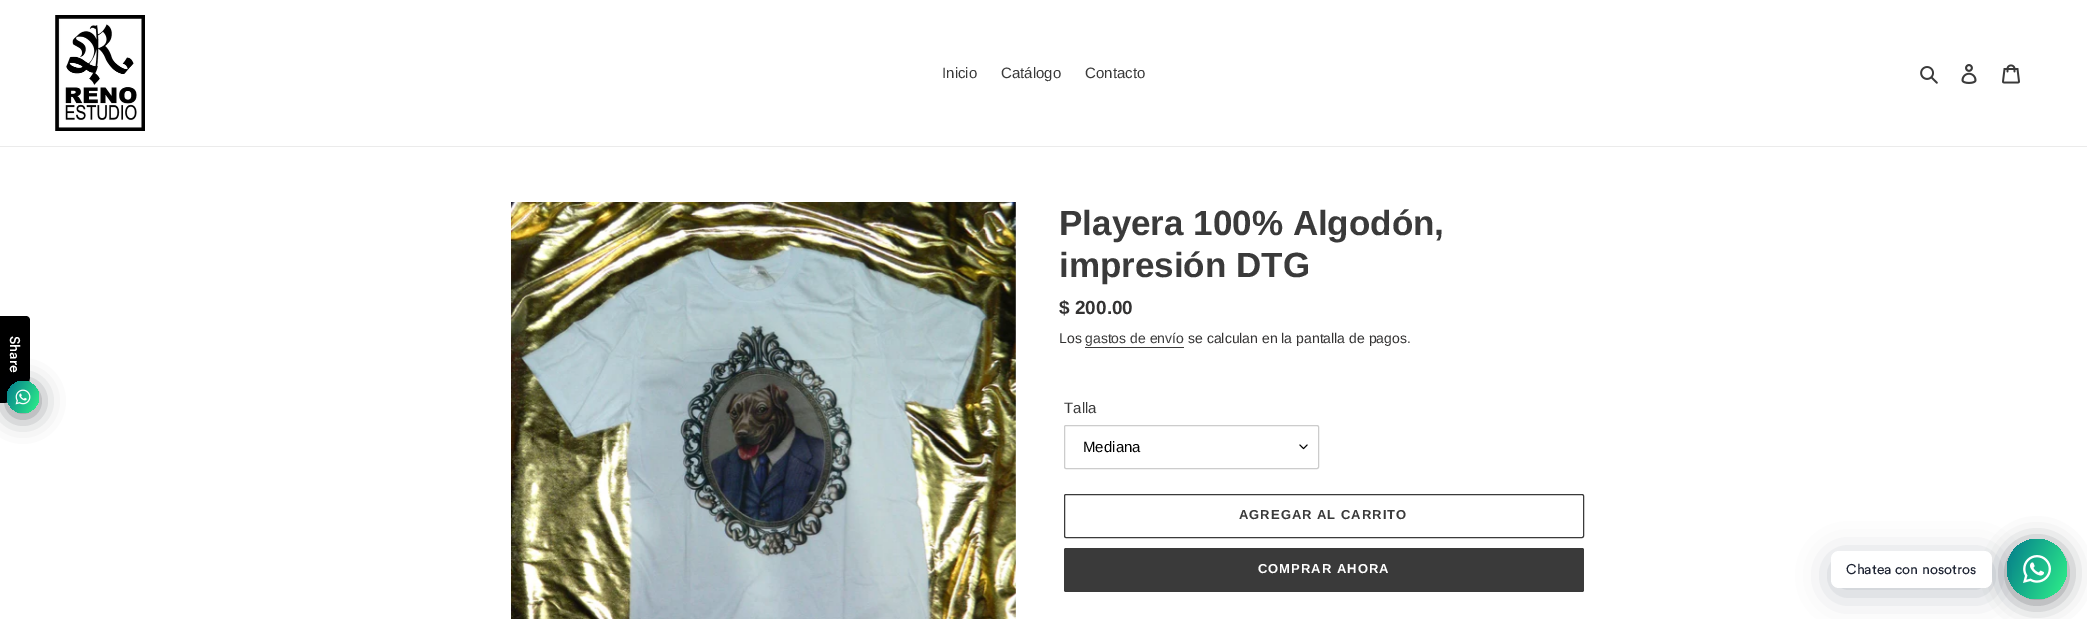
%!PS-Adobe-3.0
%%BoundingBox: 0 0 2087 619
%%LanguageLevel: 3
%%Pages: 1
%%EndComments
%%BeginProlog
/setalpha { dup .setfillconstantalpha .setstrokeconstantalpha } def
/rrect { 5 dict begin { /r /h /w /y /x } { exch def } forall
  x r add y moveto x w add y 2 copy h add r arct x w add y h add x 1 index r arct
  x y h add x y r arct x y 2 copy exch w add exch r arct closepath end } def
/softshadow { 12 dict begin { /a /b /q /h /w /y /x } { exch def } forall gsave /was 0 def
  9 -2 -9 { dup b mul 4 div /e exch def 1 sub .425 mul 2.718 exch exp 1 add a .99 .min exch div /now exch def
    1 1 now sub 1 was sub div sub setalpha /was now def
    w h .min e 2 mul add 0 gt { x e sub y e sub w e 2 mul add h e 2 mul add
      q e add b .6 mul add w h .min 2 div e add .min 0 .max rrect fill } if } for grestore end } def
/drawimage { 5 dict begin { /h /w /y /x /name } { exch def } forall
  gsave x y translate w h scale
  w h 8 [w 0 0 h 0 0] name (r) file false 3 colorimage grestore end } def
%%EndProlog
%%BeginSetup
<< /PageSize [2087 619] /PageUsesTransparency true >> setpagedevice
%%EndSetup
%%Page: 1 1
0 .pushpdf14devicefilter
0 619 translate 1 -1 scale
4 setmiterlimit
1 setgray
0 0 2087 619 rectfill
0.922 setgray
0 146 2087 1 rectfill
(images/1.raw) 55 15 90 116 drawimage
(images/2.raw) 1920 66 18 18 drawimage
(images/3.raw) 1961 64 16 20 drawimage
(images/4.raw) 2002 64 18 20 drawimage
(images/5.raw) 511 202 505 417 drawimage
0.227 setgray
1085 347 99 1 rectfill
(images/6.raw) 1299 444 9 6 drawimage
0.8 setgray
1064.5 425.5 254 43 1.5 rrect stroke
0.227 setgray
1064.5 494.5 519 43 1.5 rrect stroke
1064 548 520 44 2 rrect fill
0 setgray
newpath 0 403 moveto 0 316 lineto 26 316 lineto 28 316 30 318 30 320 curveto 30 375 lineto 30 391 17 403 2 403 curveto closepath fill
0.008 0.024 0.063 setrgbcolor
7 385 32 32 16 12 0.5 softshadow
gsave newpath 23 397 16 0 360 arc closepath clip newpath
<< /ShadingType 2 /ColorSpace /DeviceRGB /Coords [3.7 388 42 406] /Extend [true true] /Function << /FunctionType 2 /Domain [0 1] /C0 [0.016 0.486 0.553] /C1 [0.184 0.949 0.537] /N 1 >> >> shfill grestore
(images/7.raw) 15 389 16 16 drawimage
2007 543 60 60 30 12 0.5 softshadow
gsave newpath 2037 569 30 0 360 arc closepath clip newpath
<< /ShadingType 2 /ColorSpace /DeviceRGB /Coords [2001 552 2073 586] /Extend [true true] /Function << /FunctionType 2 /Domain [0 1] /C0 [0.016 0.486 0.553] /C1 [0.184 0.949 0.537] /N 1 >> >> shfill grestore
0 0.071 0.18 setrgbcolor
1831 557 161 37 8 16 0.24 softshadow
1 setgray
1831 551 161 37 8 rrect fill
(images/8.raw) 2023 555 28 28 drawimage
/LiberationSans-Regular [15 0 0 -15 0 0] selectfont
0.227 setgray
942 78 moveto (Inicio) show
1001 78 moveto (Catálogo) show
1085 78 moveto (Contacto) show
/LiberationSans-Bold [35 0 0 -35 0 0] selectfont
1059 235 moveto (Playera 100% Algodón,) show
1059 277 moveto (impresión DTG) show
/LiberationSans-Bold [19 0 0 -19 0 0] selectfont
0.2 0.196 0.196 setrgbcolor
1059 314 moveto ($ 200.00) show
/LiberationSans-Regular [14 0 0 -14 0 0] selectfont
1059 343 moveto (Los) show
0.227 setgray
1085 343 moveto (gastos de envío) show
0.2 0.196 0.196 setrgbcolor
1188 343 moveto (se calculan en la pantalla de pagos.) show
/LiberationSans-Regular [15 0 0 -15 0 0] selectfont
0.227 setgray
1064 413 moveto (Talla) show
0 setgray
1083 452 moveto (Mediana) show
/LiberationSans-Bold [13 0 0 -13 0 0] selectfont
0.227 setgray
1239 519 moveto 1 0 (AGREGAR AL CARRITO) ashow
1 setgray
1258 573 moveto 1 0 (COMPRAR AHORA) ashow
/Circular-Medium [14 0 0 -14 0 0] selectfont
gsave 10 336 translate 90 rotate 0 0 moveto (Share) show grestore
/Circular-Regular [14 0 0 -14 0 0] selectfont
0.118 0.141 0.2 setrgbcolor
1846 574 moveto (Chatea con nosotros) show
.poppdf14devicefilter showpage
%%EOF
